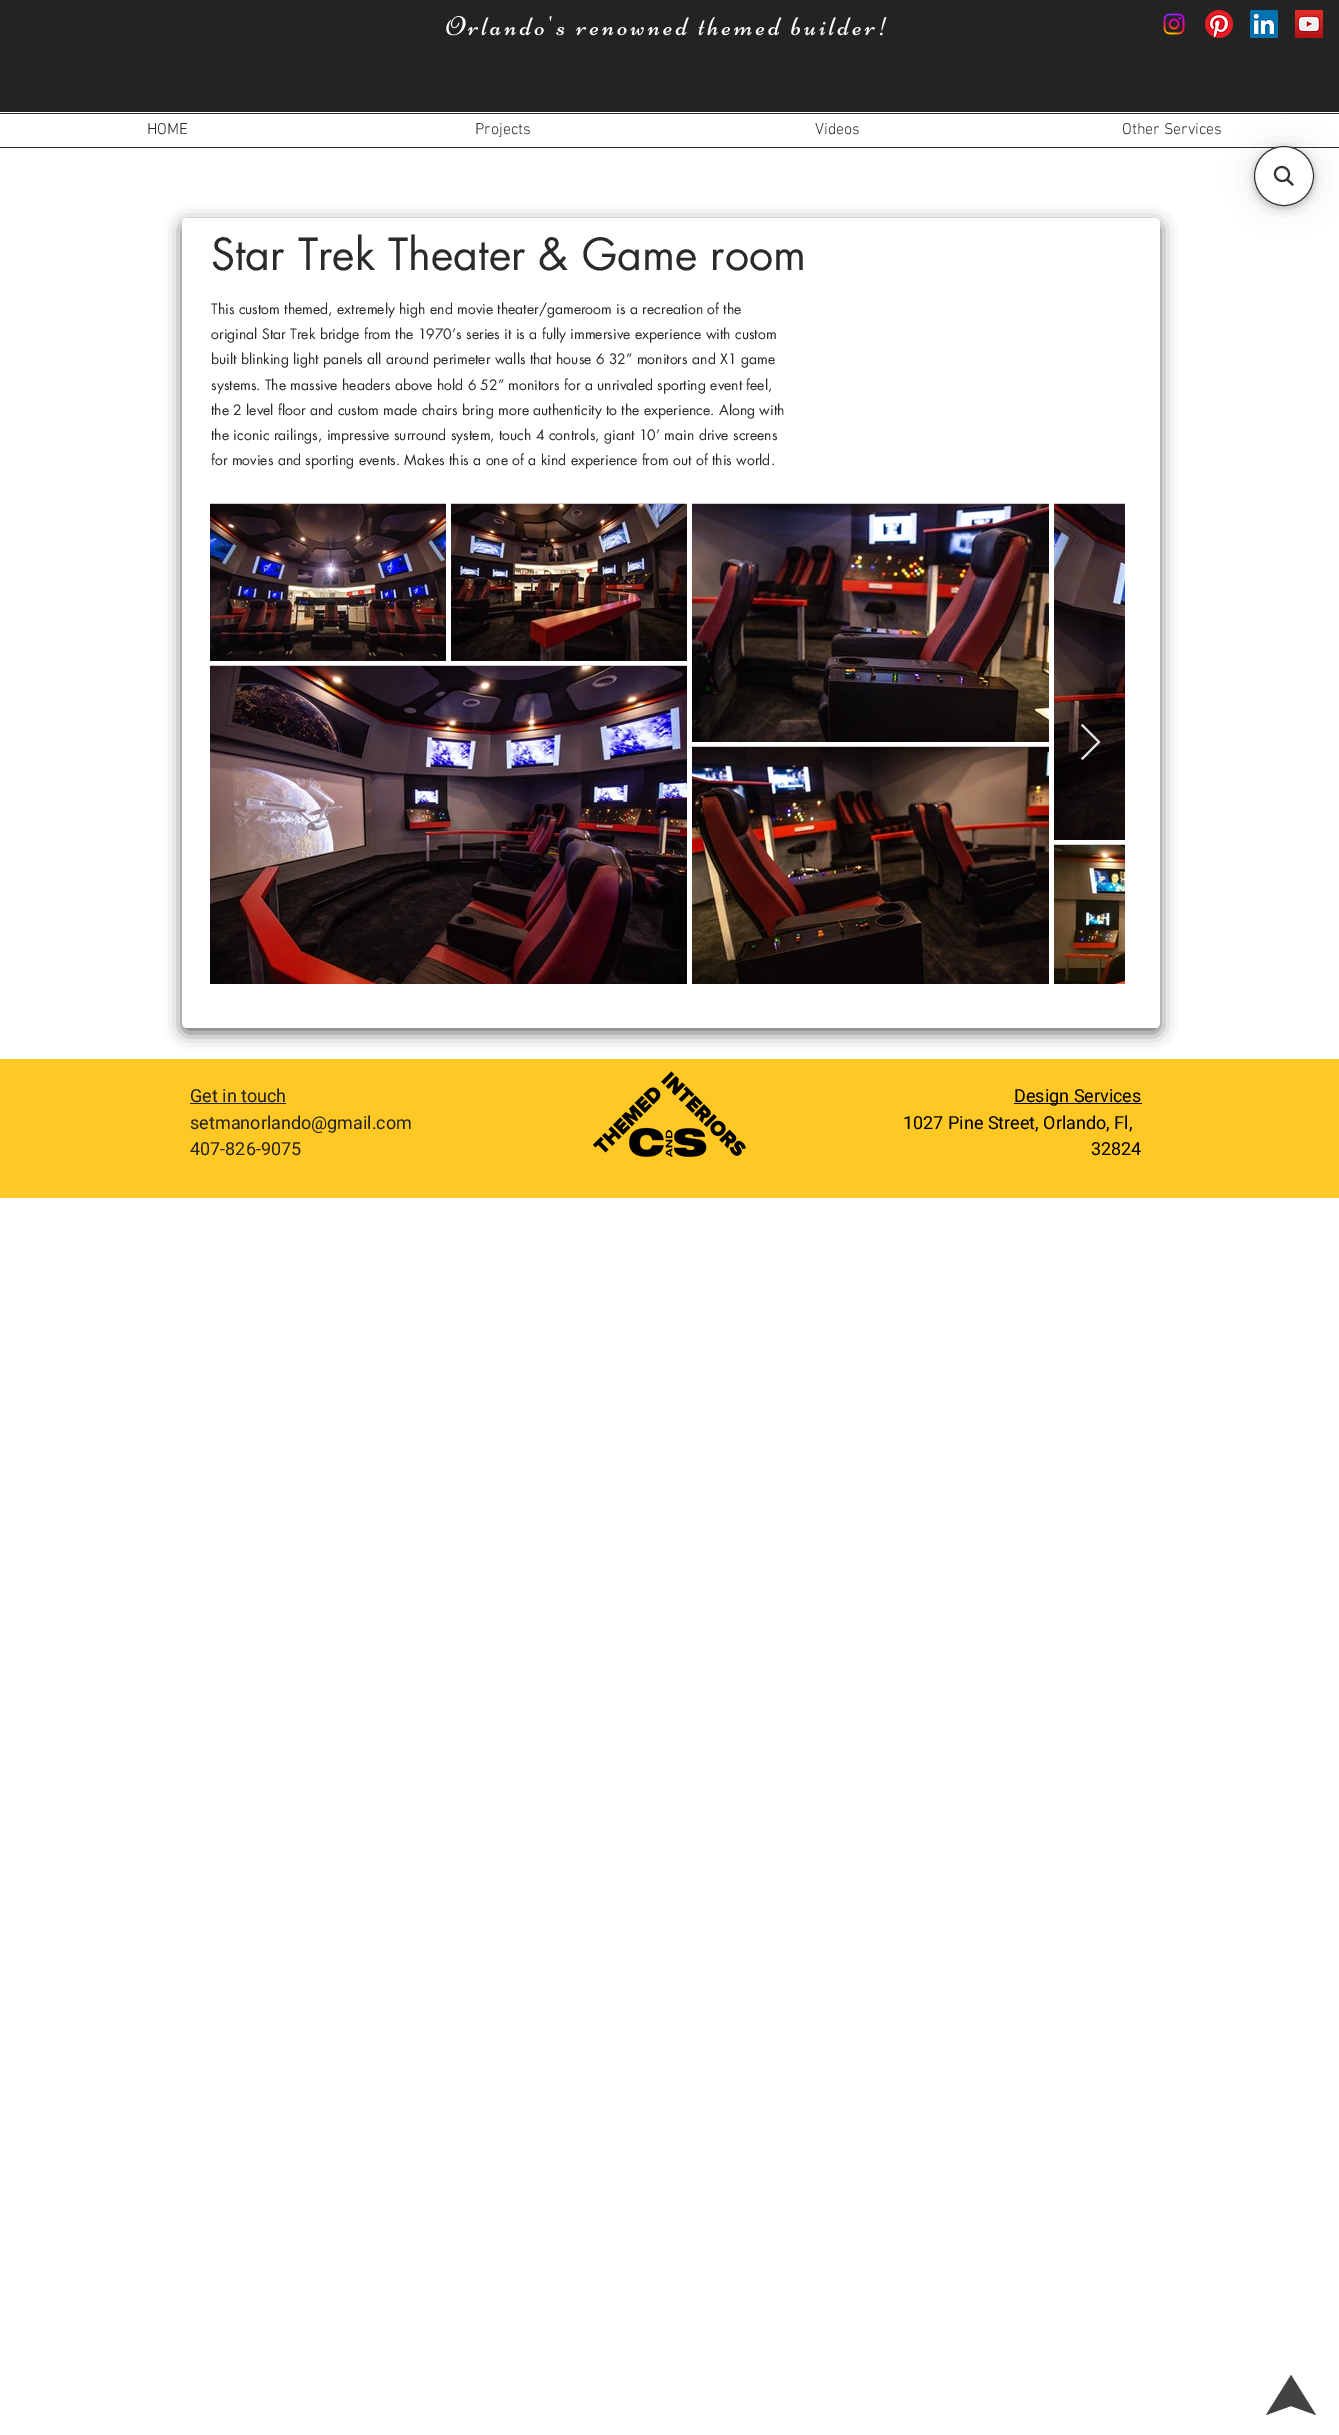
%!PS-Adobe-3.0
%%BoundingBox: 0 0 1339 2435
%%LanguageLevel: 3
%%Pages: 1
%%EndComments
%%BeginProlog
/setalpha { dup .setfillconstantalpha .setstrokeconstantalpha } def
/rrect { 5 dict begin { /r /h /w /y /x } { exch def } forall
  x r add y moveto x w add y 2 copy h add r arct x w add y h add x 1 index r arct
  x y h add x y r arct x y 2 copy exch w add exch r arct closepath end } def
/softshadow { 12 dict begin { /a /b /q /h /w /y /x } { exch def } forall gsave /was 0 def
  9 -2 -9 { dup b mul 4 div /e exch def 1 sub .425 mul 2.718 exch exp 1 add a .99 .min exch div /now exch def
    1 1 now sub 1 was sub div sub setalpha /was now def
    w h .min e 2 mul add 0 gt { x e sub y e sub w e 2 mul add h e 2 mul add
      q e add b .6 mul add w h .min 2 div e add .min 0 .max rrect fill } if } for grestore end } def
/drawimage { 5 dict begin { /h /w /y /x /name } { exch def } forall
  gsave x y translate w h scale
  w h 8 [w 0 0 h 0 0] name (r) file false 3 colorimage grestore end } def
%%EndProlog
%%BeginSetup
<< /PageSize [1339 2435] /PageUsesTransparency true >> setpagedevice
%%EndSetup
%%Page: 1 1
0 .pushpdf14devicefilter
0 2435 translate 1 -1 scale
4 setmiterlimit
1 setgray
0 0 1339 2435 rectfill
0.141 0.137 0.137 setrgbcolor
0 0 1339 112 rectfill
(images/1.raw) 446 16 441 20 drawimage
(images/2.raw) 1163 13 22 22 drawimage
(images/3.raw) 1205 10 28 28 drawimage
(images/4.raw) 1250 10 28 28 drawimage
(images/5.raw) 1295 10 28 28 drawimage
0.165 setgray
0 113 1339 1 rectfill
0 147 1339 1 rectfill
0 setgray
182 223 978 810 5 8 0.6 softshadow
1 setgray
182 218 978 810 5 rrect fill
0.8 setgray
210 503 236 1 rectfill
(images/6.raw) 210 504 236 157 drawimage
451 503 236 1 rectfill
(images/7.raw) 451 504 236 157 drawimage
210 665 477 1 rectfill
(images/8.raw) 210 666 477 318 drawimage
692 503 357 1 rectfill
(images/9.raw) 692 504 357 238 drawimage
692 746 357 1 rectfill
(images/10.raw) 692 747 357 237 drawimage
1054 503 71 1 rectfill
(images/11.raw) 1054 504 71 336 drawimage
1054 844 71 1 rectfill
(images/12.raw) 1054 845 71 139 drawimage
0.9 setalpha
1 setgray
newpath 1081 725.5 moveto 1082.5 724 lineto 1100.5 742 lineto 1082.5 760 lineto 1081 758.5 lineto 1097.5 742 lineto closepath fill
1 setalpha
1 0.784 0.141 setrgbcolor
0 1059 1339 139 rectfill
0.141 0.137 0.137 setrgbcolor
190 1103 96 1 rectfill
(images/13.raw) 593 1071 153 87 drawimage
0 setgray
1014 1103 128 1 rectfill
0.259 setgray
newpath 1316 2415 moveto 1291 2406 lineto 1266 2415 lineto 1291 2375 lineto closepath fill
0 setgray
1254 150 60 60 30 4 0.05 softshadow
1254 148 60 60 30 4 0.15 softshadow
1254 146 60 60 30 15 0.1 softshadow
1 setgray
newpath 1284 176 29.5 0 360 arc closepath gsave fill grestore
0.2 setgray
stroke
2 setlinewidth
newpath 1277 169 moveto 1283.5 162.5 1293.5 172.5 1287 179 curveto 1280.5 185.5 1270.5 175.5 1277 169 curveto closepath stroke
newpath 1286 180 moveto 1287.5 178.5 lineto 1293.5 184 lineto 1294 185 1292.5 186 1292 185.5 curveto closepath fill
/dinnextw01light-Light [16 0 0 -16 0 0] selectfont
0.165 setgray
147 134 moveto (HOME) show
475 134 moveto (Projects) show
815 134 moveto (Videos) show
1122 134 moveto (Other Services) show
/futura-Regular [43 0 0 -43 0 0] selectfont
211 270 moveto (Star Trek Theater & Game room) show
/futura-Regular [14 0 0 -14 0 0] selectfont
211 314 moveto (This custom themed, extremely high end movie theater/gameroom is a recreation of the) show
211 339 moveto (original Star Trek bridge from the 1970’s series it is a fully immersive experience with custom) show
211 364 moveto (built blinking light panels all around perimeter walls that house 6 32” monitors and X1 game) show
211 390 moveto (systems. The massive headers above hold 6 52” monitors for a unrivaled sporting event feel,) show
211 415 moveto (the 2 level floor and custom made chairs bring more authenticity to the experience. Along with) show
211 440 moveto (the iconic railings, impressive surround system, touch 4 controls, giant 10’ main drive screens) show
211 465 moveto (for movies and sporting events. Makes this a one of a kind experience from out of this world.) show
/Heebo-Regular [18 0 0 -18 0 0] selectfont
0.141 0.137 0.137 setrgbcolor
190 1102 moveto (Get in touch) show
190 1129 moveto (setmanorlando@gmail.com) show
190 1155 moveto (407-826-9075) show
0 setgray
1014 1102 moveto (Design Services) show
903 1129 moveto (1027 Pine Street, Orlando, Fl,) show
1091 1155 moveto (32824) show
.poppdf14devicefilter showpage
%%EOF
